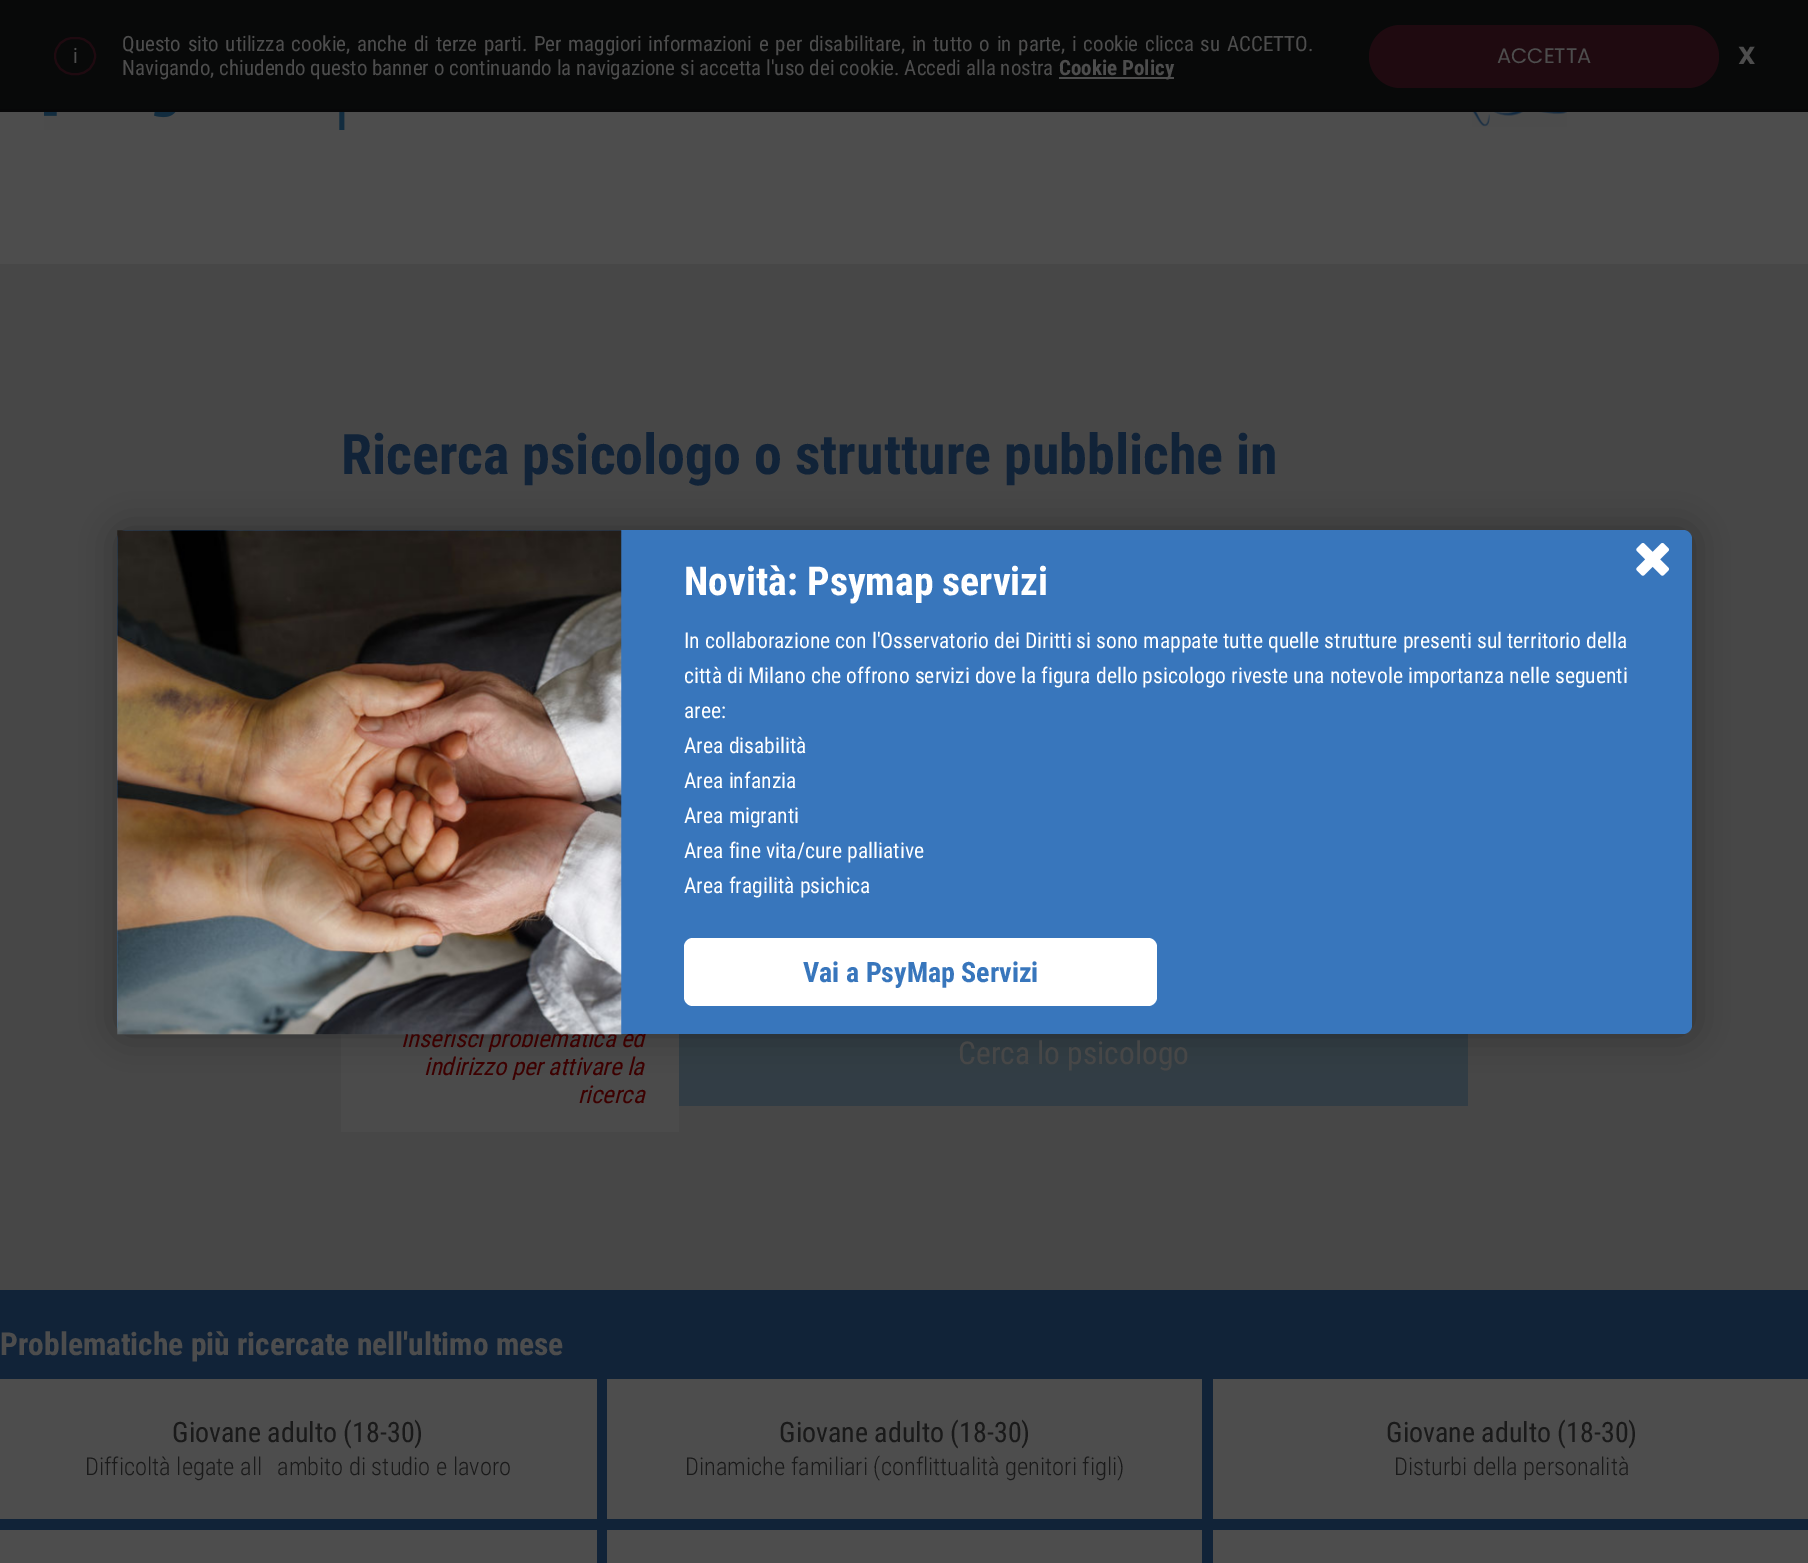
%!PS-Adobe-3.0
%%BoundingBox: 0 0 1808 1563
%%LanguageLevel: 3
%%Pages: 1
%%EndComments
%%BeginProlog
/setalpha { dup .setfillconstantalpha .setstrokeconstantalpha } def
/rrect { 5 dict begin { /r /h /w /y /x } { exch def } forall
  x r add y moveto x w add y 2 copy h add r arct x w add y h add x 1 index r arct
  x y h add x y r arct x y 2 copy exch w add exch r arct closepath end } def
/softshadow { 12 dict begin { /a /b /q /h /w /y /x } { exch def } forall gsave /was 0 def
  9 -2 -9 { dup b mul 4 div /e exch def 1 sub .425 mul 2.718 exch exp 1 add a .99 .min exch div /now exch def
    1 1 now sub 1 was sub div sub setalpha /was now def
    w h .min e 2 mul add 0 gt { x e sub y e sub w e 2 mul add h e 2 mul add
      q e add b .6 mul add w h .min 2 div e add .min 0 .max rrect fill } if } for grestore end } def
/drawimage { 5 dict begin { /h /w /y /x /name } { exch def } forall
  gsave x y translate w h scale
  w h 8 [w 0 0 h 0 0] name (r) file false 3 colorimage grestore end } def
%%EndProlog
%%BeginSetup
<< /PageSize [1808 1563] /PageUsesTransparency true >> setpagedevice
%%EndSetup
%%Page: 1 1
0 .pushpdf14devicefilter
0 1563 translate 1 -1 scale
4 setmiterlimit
0.302 setgray
0 0 1808 1563 rectfill
0.031 0.035 0.035 setrgbcolor
0 0 1808 109 rectfill
0.122 0.039 0.063 setrgbcolor
2 setlinewidth
55 38 40 36 18 rrect stroke
0.302 setgray
1059 77 115 2 rectfill
0.122 0.039 0.063 setrgbcolor
1369 25 350 63 31.5 rrect fill
0.027 0.027 0.031 setrgbcolor
0 109 1808 3 rectfill
(images/1.raw) 44 112 301 18 drawimage
(images/2.raw) 1472 112 95 15 drawimage
0.278 setgray
0 264 1808 1026 rectfill
0.294 setgray
341 1034 338 98 rectfill
0.196 0.239 0.271 setrgbcolor
679 1034 789 72 rectfill
0.067 0.137 0.22 setrgbcolor
0 1290 1808 273 rectfill
0.302 setgray
0 1379 597 140 rectfill
607 1379 595 140 rectfill
1213 1379 595 140 rectfill
0 1530 597 33 rectfill
607 1530 595 33 rectfill
1213 1530 595 33 rectfill
0 setgray
117 530 1575 504 9 17.5 0.3 softshadow
/RobotoCondensed-Regular [21 0 0 -21 0 0] selectfont
0.302 setgray
73 63 moveto (i) show
122 51 moveto 1.9 0 32 (Questo sito utilizza cookie, anche di terze parti. Per maggiori informazioni e per disabilitare, in tutto o in parte, i cookie clicca su ACCETTO.) widthshow
122 75 moveto (Navigando, chiudendo questo banner o continuando la navigazione si accetta l'uso dei cookie. Accedi alla nostra) show
/RobotoCondensed-Bold [21 0 0 -21 0 0] selectfont
1059 75 moveto (Cookie Policy) show
/Poppins-Regular [21 0 0 -21 0 0] selectfont
1497 63 moveto (ACCETTA) show
/Poppins-Bold [24.5 0 0 -24.5 0 0] selectfont
1738 64 moveto (X) show
/RobotoCondensed-Bold [56 0 0 -56 0 0] selectfont
0.067 0.137 0.22 setrgbcolor
341 474 moveto (Ricerca psicologo o strutture pubbliche in) show
/RobotoCondensed-Italic [24.5 0 0 -24.5 0 0] selectfont
0.235 0 0 setrgbcolor
401 1047 moveto (Inserisci problematica ed) show
424 1075 moveto (indirizzo per attivare la) show
578 1103 moveto (ricerca) show
/RobotoCondensed-Regular [31.5 0 0 -31.5 0 0] selectfont
0.278 setgray
958 1064 moveto (Cerca lo psicologo) show
/RobotoCondensed-Bold [31.5 0 0 -31.5 0 0] selectfont
0.302 setgray
0 1355 moveto (Problematiche più ricercate nell'ultimo mese) show
/RobotoCondensed-Regular [28 0 0 -28 0 0] selectfont
0.102 setgray
172 1442 moveto (Giovane adulto \(18-30\)) show
/RobotoCondensed-Light [24.5 0 0 -24.5 0 0] selectfont
85 1475 moveto (Difficoltà legate all) show
277 1475 moveto (ambito di studio e lavoro) show
/RobotoCondensed-Regular [28 0 0 -28 0 0] selectfont
779 1442 moveto (Giovane adulto \(18-30\)) show
/RobotoCondensed-Light [24.5 0 0 -24.5 0 0] selectfont
685 1475 moveto (Dinamiche familiari \(conflittualità genitori figli\)) show
/RobotoCondensed-Regular [28 0 0 -28 0 0] selectfont
1386 1442 moveto (Giovane adulto \(18-30\)) show
/RobotoCondensed-Light [24.5 0 0 -24.5 0 0] selectfont
1394 1475 moveto (Disturbi della personalità) show
0.22 0.463 0.737 setrgbcolor
117 530 1575 504 9 rrect fill
(images/3.raw) 1636 543 33 33 drawimage
(images/4.raw) 117 530 505 505 drawimage
/RobotoCondensed-Bold [39.75 0 0 -39.75 0 0] selectfont
1 setgray
684 595 moveto (Novità: Psymap servizi) show
/RobotoCondensed-Regular [21.65 0 0 -21.65 0 0] selectfont
684 648 moveto (In collaborazione con l'Osservatorio dei Diritti si sono mappate tutte quelle strutture presenti sul territorio della) show
684 683 moveto (città di Milano che offrono servizi dove la figura dello psicologo riveste una notevole importanza nelle seguenti) show
684 718 moveto (aree:) show
684 753 moveto (Area disabilità) show
684 788 moveto (Area infanzia) show
684 823 moveto (Area migranti) show
684 858 moveto (Area fine vita/cure palliative) show
684 893 moveto (Area fragilità psichica) show
684 938 473 68 9 rrect fill
/RobotoCondensed-Bold [28 0 0 -28 0 0] selectfont
0.22 0.463 0.737 setrgbcolor
803 982 moveto (Vai a PsyMap Servizi) show
.poppdf14devicefilter showpage
%%EOF
